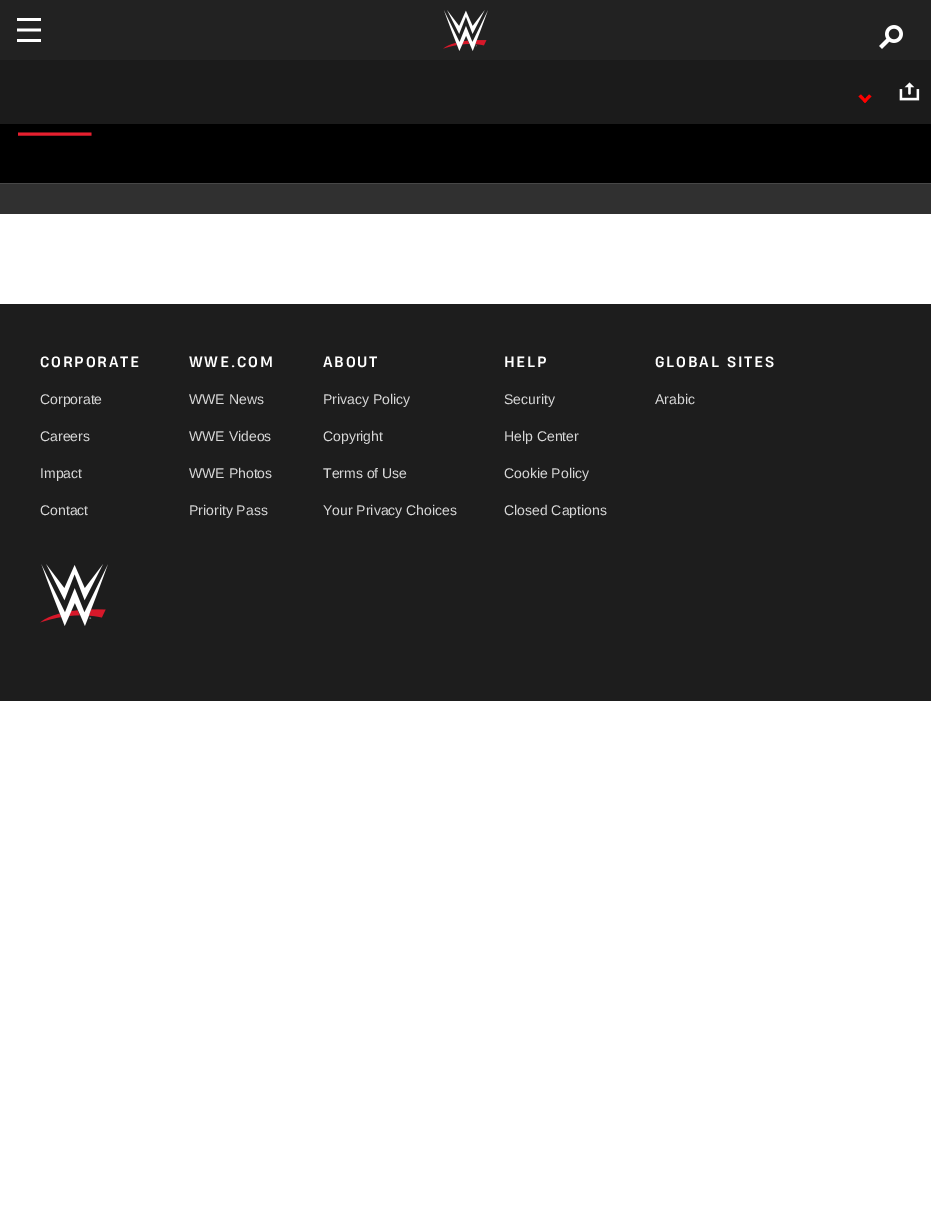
%!PS-Adobe-3.0
%%BoundingBox: 0 0 931 1214
%%LanguageLevel: 3
%%Pages: 1
%%EndComments
%%BeginProlog
/drawimage { 5 dict begin { /h /w /y /x /name } { exch def } forall
  gsave x y translate w h scale
  w h 8 [w 0 0 h 0 0] name (r) file false 3 colorimage grestore end } def
%%EndProlog
%%BeginSetup
<< /PageSize [931 1214] >> setpagedevice
%%EndSetup
%%Page: 1 1
0 1214 translate 1 -1 scale
4 setmiterlimit
1 setgray
0 0 931 1214 rectfill
0.133 setgray
0 0 931 60 rectfill
(images/1.raw) 17 18 24 24 drawimage
(images/2.raw) 443 10 45 41 drawimage
(images/3.raw) 879 25 24 24 drawimage
0.188 setgray
0 184 931 30 rectfill
0.106 setgray
0 60 931 64 rectfill
1 0 0 setrgbcolor
newpath 869 94.5 moveto 871.5 96.5 lineto 865 103 lineto 863 101 lineto closepath fill
newpath 861 94.5 moveto 867 101 lineto 865 103 lineto 858.5 96.5 lineto closepath fill
(images/4.raw) 899 82 21 19 drawimage
0 setgray
0 124 931 59 rectfill
0.278 setgray
0 183 931 1 rectfill
gsave
18 131 90 5 rectclip
0.906 0.125 0.184 setrgbcolor
3 setlinewidth
newpath 1.5 134 moveto 91.5 134 lineto stroke
grestore
0.114 setgray
0 304 931 397 rectfill
(images/5.raw) 40 564 68 62 drawimage
/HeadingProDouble-Bold [14 0 0 -14 0 0] selectfont
1 setgray
40 367 moveto 1.75 0 (CORPORATE) ashow
/LiberationSans-Regular [14 0 0 -14 0 0] selectfont
0.847 setgray
40 404 moveto (Corporate) show
40 441 moveto (Careers) show
40 478 moveto (Impact) show
40 515 moveto (Contact) show
/HeadingProDouble-Bold [14 0 0 -14 0 0] selectfont
1 setgray
189 367 moveto 1.75 0 (WWE.COM) ashow
/LiberationSans-Regular [14 0 0 -14 0 0] selectfont
0.847 setgray
189 404 moveto (WWE News) show
189 441 moveto (WWE Videos) show
189 478 moveto (WWE Photos) show
189 515 moveto (Priority Pass) show
/HeadingProDouble-Bold [14 0 0 -14 0 0] selectfont
1 setgray
323 367 moveto 1.75 0 (ABOUT) ashow
/LiberationSans-Regular [14 0 0 -14 0 0] selectfont
0.847 setgray
323 404 moveto (Privacy Policy) show
323 441 moveto (Copyright) show
323 478 moveto (Terms of Use) show
323 515 moveto (Your Privacy Choices) show
/HeadingProDouble-Bold [14 0 0 -14 0 0] selectfont
1 setgray
504 367 moveto 1.75 0 (HELP) ashow
/LiberationSans-Regular [14 0 0 -14 0 0] selectfont
0.847 setgray
504 404 moveto (Security) show
504 441 moveto (Help Center) show
504 478 moveto (Cookie Policy) show
504 515 moveto (Closed Captions) show
/HeadingProDouble-Bold [14 0 0 -14 0 0] selectfont
1 setgray
655 367 moveto 1.75 0 (GLOBAL SITES) ashow
/LiberationSans-Regular [14 0 0 -14 0 0] selectfont
0.847 setgray
655 404 moveto (Arabic) show
showpage
%%EOF
